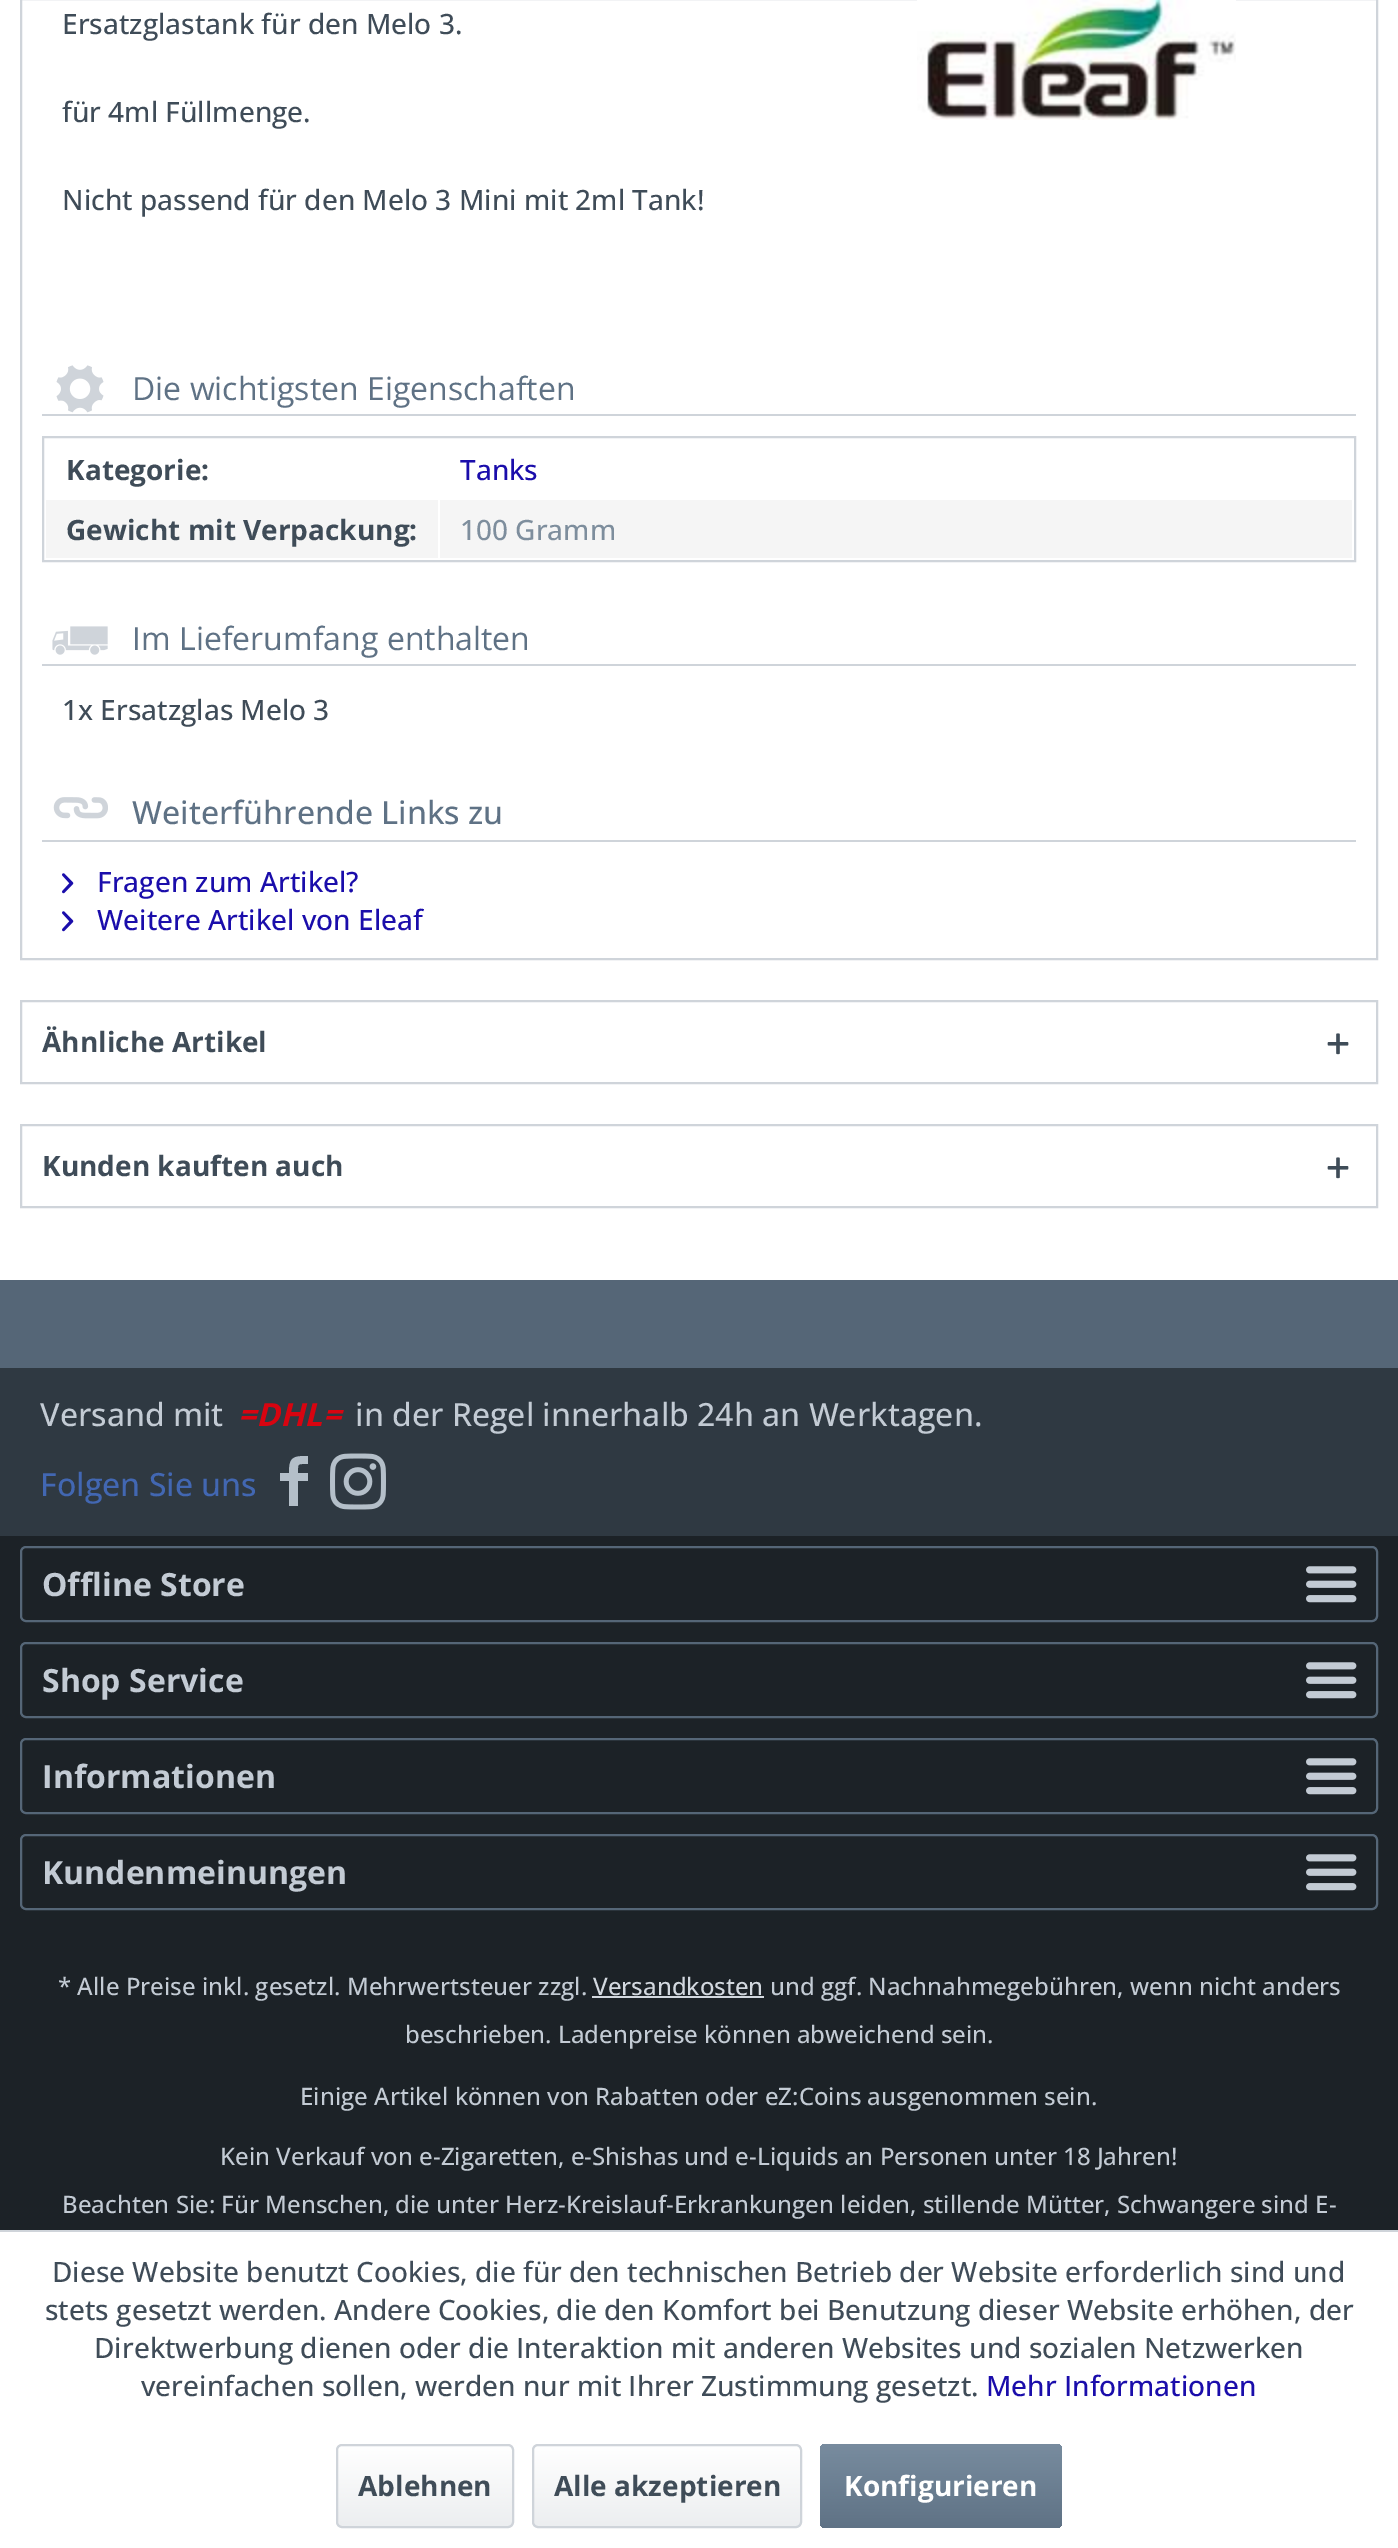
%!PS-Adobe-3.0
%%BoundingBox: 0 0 1398 2548
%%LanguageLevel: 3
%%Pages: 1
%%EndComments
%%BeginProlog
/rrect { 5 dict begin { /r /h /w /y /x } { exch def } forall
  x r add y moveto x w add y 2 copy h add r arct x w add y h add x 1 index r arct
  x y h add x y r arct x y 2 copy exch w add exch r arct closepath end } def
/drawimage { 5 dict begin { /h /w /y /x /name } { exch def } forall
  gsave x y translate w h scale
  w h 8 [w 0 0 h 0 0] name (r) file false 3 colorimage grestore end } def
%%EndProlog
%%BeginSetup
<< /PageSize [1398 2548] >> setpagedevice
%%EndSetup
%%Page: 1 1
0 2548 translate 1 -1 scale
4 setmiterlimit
1 setgray
0 0 1398 2548 rectfill
0.812 0.831 0.855 setrgbcolor
2 setlinewidth
21 -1 1356 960 rectstroke
(images/1.raw) 917 0 319 120 drawimage
42 414 1314 2 rectfill
(images/2.raw) 56 365 48 48 drawimage
43 437 1312 124 rectstroke
0.961 setgray
46 500 392 58 rectfill
440 500 912 58 rectfill
0.812 0.831 0.855 setrgbcolor
42 664 1314 2 rectfill
(images/3.raw) 52 626 56 29 drawimage
42 840 1314 2 rectfill
(images/4.raw) 53 797 55 22 drawimage
(images/5.raw) 62 873 12 21 drawimage
(images/5.raw) 62 911 12 21 drawimage
21 1001 1356 82 rectstroke
(images/6.raw) 1327 1033 22 22 drawimage
21 1125 1356 82 rectstroke
(images/6.raw) 1327 1157 22 22 drawimage
0.333 0.4 0.467 setrgbcolor
0 1280 1398 88 rectfill
0.184 0.224 0.259 setrgbcolor
0 1368 1398 168 rectfill
0.706 0.749 0.788 setrgbcolor
newpath 308 1464 moveto 297 1464 298 1463 298 1473 curveto 308 1473 lineto 308 1481 lineto 298 1481 lineto 298 1506 lineto 289 1506 lineto 289 1481 lineto 280 1481 lineto 280 1473 lineto 289 1473 lineto 289 1457 293 1456 308 1456 curveto closepath fill
(images/7.raw) 330 1453 56 57 drawimage
0.11 0.133 0.153 setrgbcolor
0 1536 1398 694 rectfill
0.333 0.4 0.467 setrgbcolor
21 1547 1356 74 5 rrect stroke
(images/8.raw) 1306 1566 51 37 drawimage
21 1643 1356 74 5 rrect stroke
(images/8.raw) 1306 1662 51 37 drawimage
21 1739 1356 74 5 rrect stroke
(images/8.raw) 1306 1758 51 37 drawimage
21 1835 1356 74 5 rrect stroke
(images/8.raw) 1306 1854 51 37 drawimage
0.824 0.847 0.875 setrgbcolor
592 1996 172 2 rectfill
0.812 0.831 0.855 setrgbcolor
0 2230 1398 2 rectfill
gsave 338 2446 174 80 4 rrect clip newpath
<< /ShadingType 2 /ColorSpace /DeviceRGB /Coords [425 2446 425 2526] /Extend [true true] /Function << /FunctionType 2 /Domain [0 1] /C0 [1 1 1] /C1 [0.925 0.933 0.941] /N 1 >> >> shfill grestore
337 2445 176 82 5 rrect stroke
gsave 534 2446 266 80 4 rrect clip newpath
<< /ShadingType 2 /ColorSpace /DeviceRGB /Coords [667 2446 667 2526] /Extend [true true] /Function << /FunctionType 2 /Domain [0 1] /C0 [1 1 1] /C1 [0.925 0.933 0.941] /N 1 >> >> shfill grestore
533 2445 268 82 5 rrect stroke
gsave 820 2444 242 84 6 rrect clip newpath
<< /ShadingType 2 /ColorSpace /DeviceRGB /Coords [941 2444 941 2528] /Extend [true true] /Function << /FunctionType 2 /Domain [0 1] /C0 [0.471 0.549 0.624] /C1 [0.373 0.447 0.522] /N 1 >> >> shfill grestore
/OpenSans-Medium [28 0 0 -28 0 0] selectfont
0.247 0.298 0.345 setrgbcolor
62 34 moveto (Ersatzglastank für den Melo 3.) show
62 122 moveto (für 4ml Füllmenge.) show
62 210 moveto (Nicht passend für den Melo 3 Mini mit 2ml Tank!) show
/OpenSans-Regular [32 0 0 -32 0 0] selectfont
0.373 0.447 0.522 setrgbcolor
132 400 moveto (Die wichtigsten Eigenschaften) show
/OpenSans-Bold [28 0 0 -28 0 0] selectfont
0.247 0.298 0.345 setrgbcolor
66 480 moveto (Kategorie:) show
/OpenSans-Medium [28 0 0 -28 0 0] selectfont
0.102 0.051 0.671 setrgbcolor
460 480 moveto (Tanks) show
/OpenSans-Bold [28 0 0 -28 0 0] selectfont
0.247 0.298 0.345 setrgbcolor
66 540 moveto (Gewicht mit Verpackung:) show
/OpenSans-Medium [28 0 0 -28 0 0] selectfont
0.494 0.557 0.616 setrgbcolor
460 540 moveto (100 Gramm) show
/OpenSans-Regular [32 0 0 -32 0 0] selectfont
0.373 0.447 0.522 setrgbcolor
132 650 moveto (Im Lieferumfang enthalten) show
/OpenSans-Medium [28 0 0 -28 0 0] selectfont
0.247 0.298 0.345 setrgbcolor
62 720 moveto (1x Ersatzglas Melo 3) show
/OpenSans-Medium [32 0 0 -32 0 0] selectfont
0.373 0.447 0.522 setrgbcolor
132 824 moveto (Weiterführende Links zu) show
/OpenSans-Medium [28 0 0 -28 0 0] selectfont
0.102 0.051 0.671 setrgbcolor
97 892 moveto (Fragen zum Artikel?) show
97 930 moveto (Weitere Artikel von Eleaf) show
/OpenSans-Bold [28 0 0 -28 0 0] selectfont
0.247 0.298 0.345 setrgbcolor
42 1052 moveto (Ähnliche Artikel) show
42 1176 moveto (Kunden kauften auch) show
/OpenSans-Medium [32 0 0 -32 0 0] selectfont
0.765 0.796 0.831 setrgbcolor
40 1426 moveto (Versand mit) show
/OpenSans-BoldItalic [32 0 0 -32 0 0] selectfont
0.847 0.016 0.063 setrgbcolor
238 1426 moveto (=DHL=) show
/OpenSans-Medium [32 0 0 -32 0 0] selectfont
0.765 0.796 0.831 setrgbcolor
355 1426 moveto (in der Regel innerhalb 24h an Werktagen.) show
0.259 0.404 0.698 setrgbcolor
40 1496 moveto (Folgen Sie uns) show
/OpenSans-Bold [32 0 0 -32 0 0] selectfont
0.765 0.796 0.831 setrgbcolor
42 1596 moveto (Offline Store) show
42 1692 moveto (Shop Service) show
42 1788 moveto (Informationen) show
42 1884 moveto (Kundenmeinungen) show
/OpenSans-Medium [24 0 0 -24 0 0] selectfont
58 1995 moveto (* Alle Preise inkl. gesetzl. Mehrwertsteuer zzgl.) show
0.824 0.847 0.875 setrgbcolor
593 1995 moveto (Versandkosten) show
0.765 0.796 0.831 setrgbcolor
770 1995 moveto (und ggf. Nachnahmegebühren, wenn nicht anders) show
405 2043 moveto (beschrieben. Ladenpreise können abweichend sein.) show
300 2105 moveto (Einige Artikel können von Rabatten oder eZ:Coins ausgenommen sein.) show
220 2165 moveto (Kein Verkauf von e-Zigaretten, e-Shishas und e-Liquids an Personen unter 18 Jahren!) show
62 2213 moveto (Beachten Sie: Für Menschen, die unter Herz-Kreislauf-Erkrankungen leiden, stillende Mütter, Schwangere sind E-) show
/OpenSans-Medium [28 0 0 -28 0 0] selectfont
0.247 0.298 0.345 setrgbcolor
52 2282 moveto (Diese Website benutzt Cookies, die für den technischen Betrieb der Website erforderlich sind und) show
45 2320 moveto (stets gesetzt werden. Andere Cookies, die den Komfort bei Benutzung dieser Website erhöhen, der) show
94 2358 moveto (Direktwerbung dienen oder die Interaktion mit anderen Websites und sozialen Netzwerken) show
141 2396 moveto (vereinfachen sollen, werden nur mit Ihrer Zustimmung gesetzt.) show
0.102 0.051 0.671 setrgbcolor
986 2396 moveto (Mehr Informationen) show
/OpenSans-Bold [28 0 0 -28 0 0] selectfont
0.247 0.298 0.345 setrgbcolor
358 2496 moveto (Ablehnen) show
554 2496 moveto (Alle akzeptieren) show
1 setgray
844 2496 moveto (Konfigurieren) show
showpage
%%EOF
